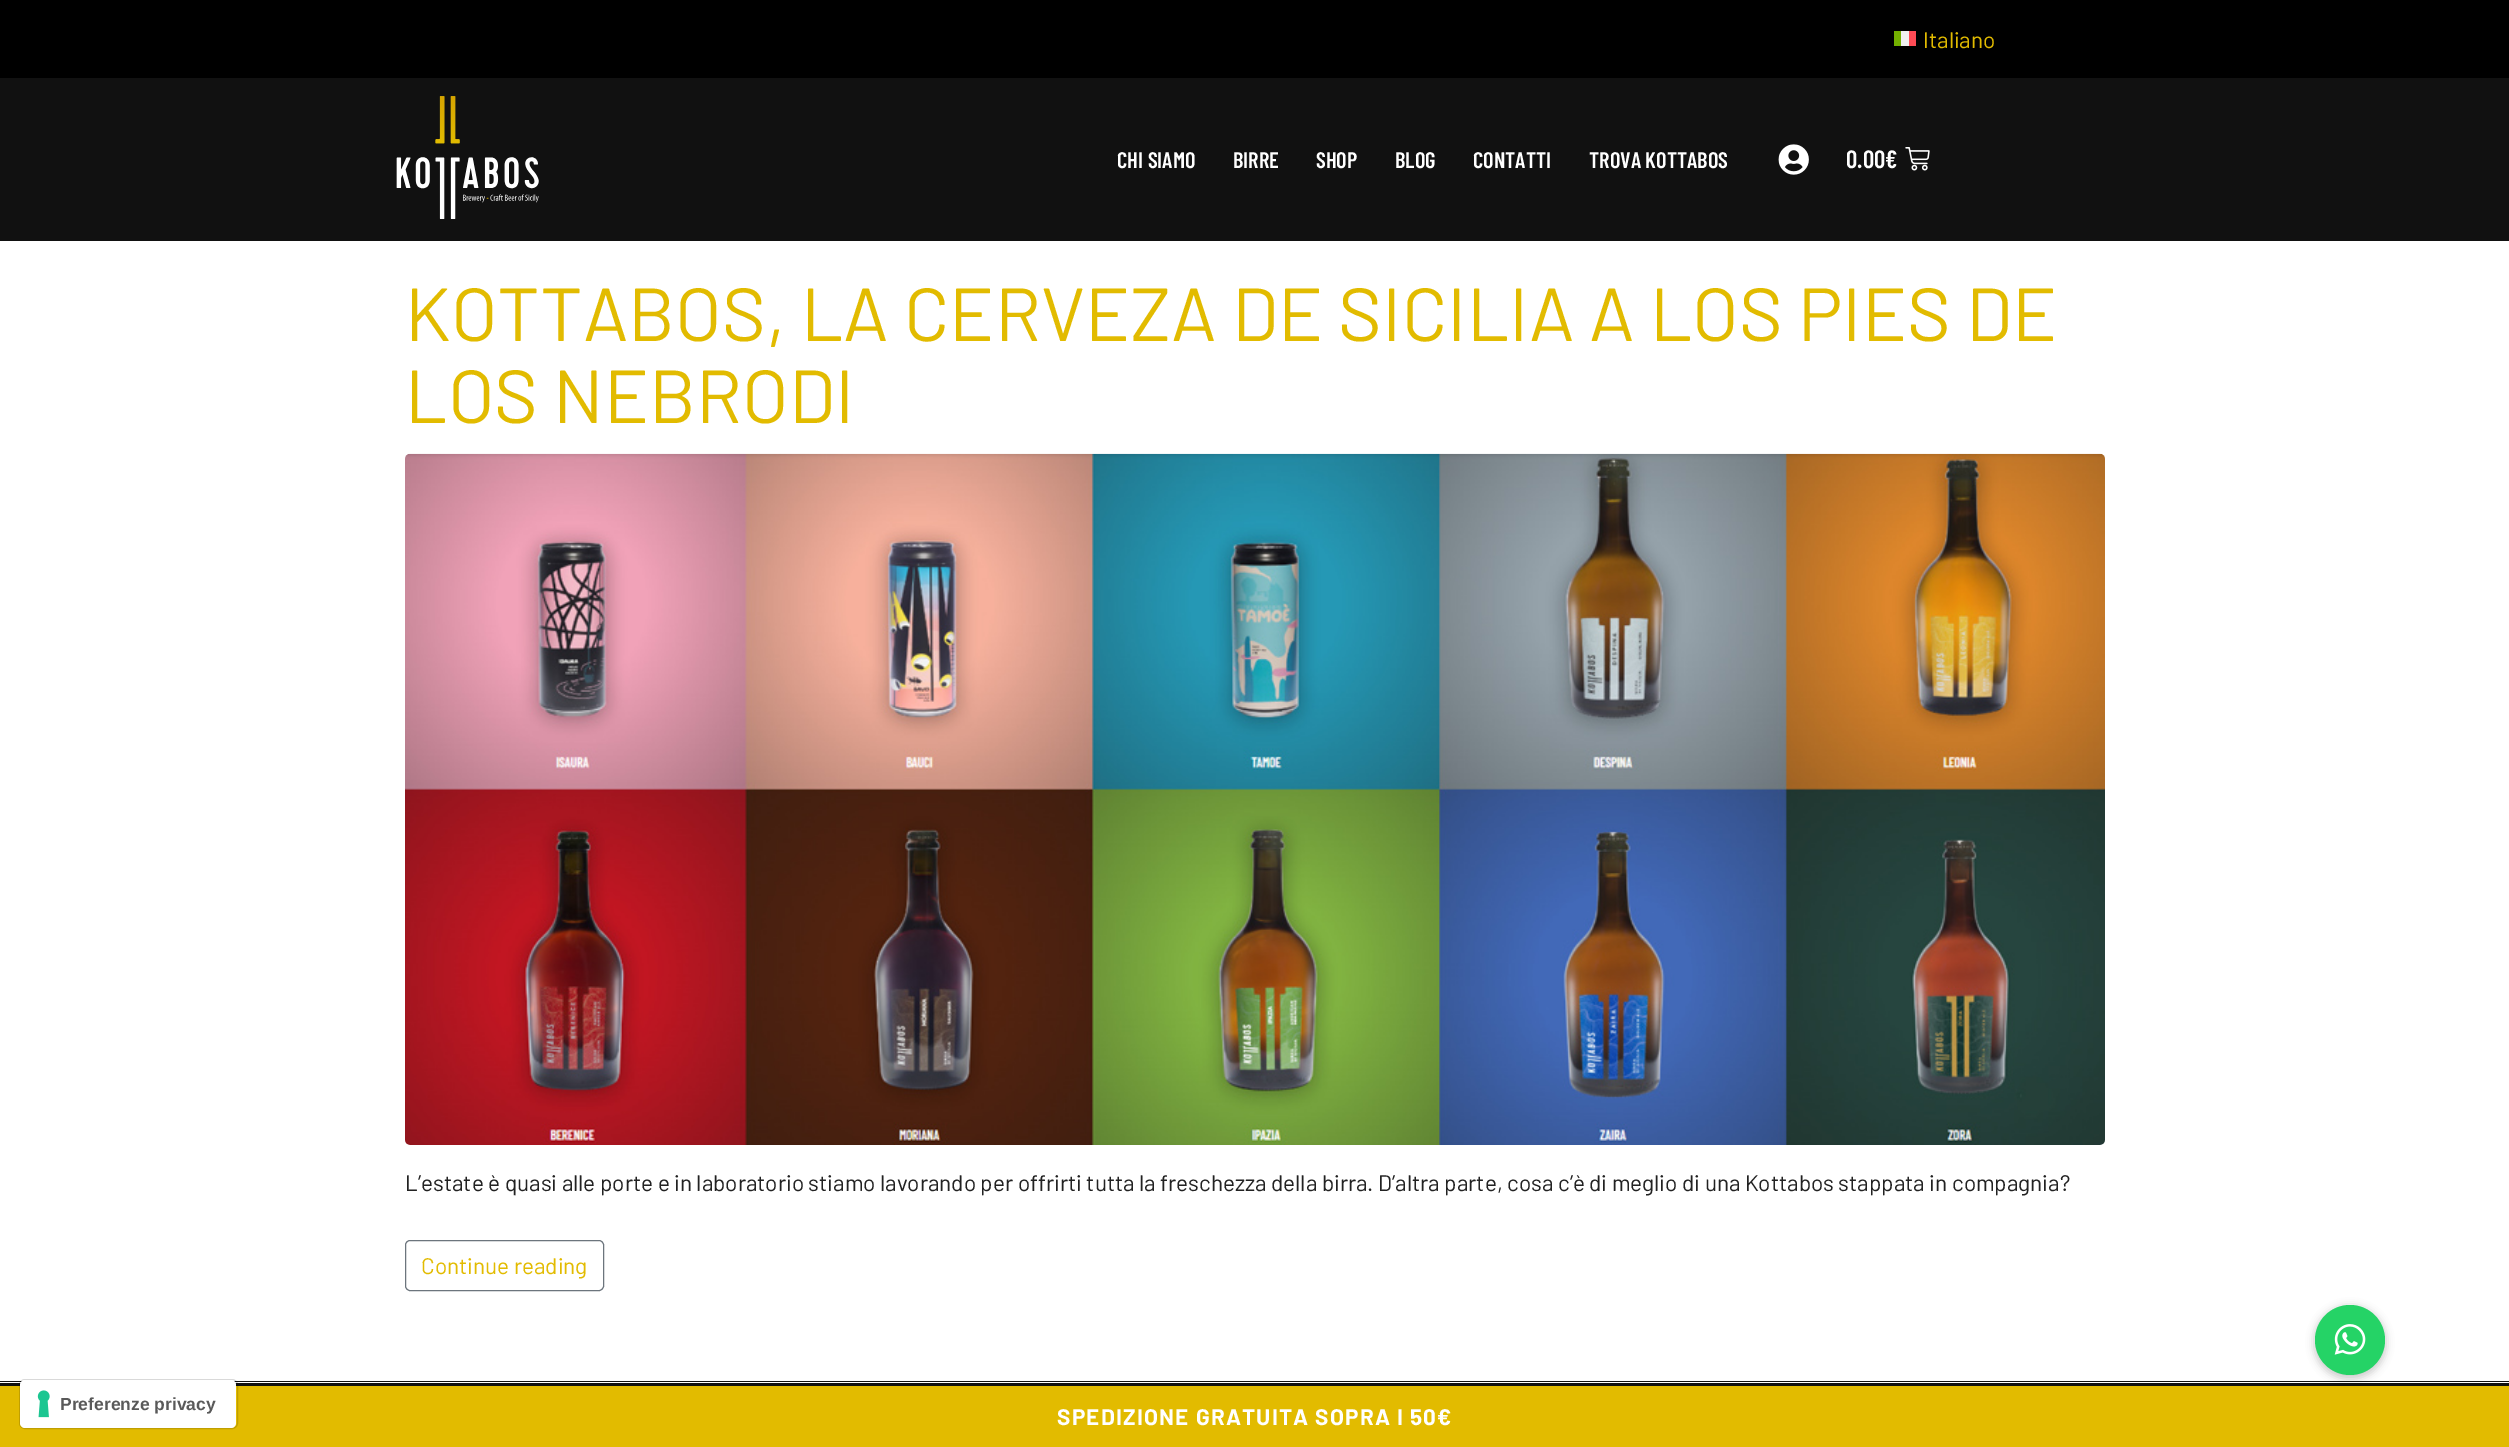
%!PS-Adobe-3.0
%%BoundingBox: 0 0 2509 1447
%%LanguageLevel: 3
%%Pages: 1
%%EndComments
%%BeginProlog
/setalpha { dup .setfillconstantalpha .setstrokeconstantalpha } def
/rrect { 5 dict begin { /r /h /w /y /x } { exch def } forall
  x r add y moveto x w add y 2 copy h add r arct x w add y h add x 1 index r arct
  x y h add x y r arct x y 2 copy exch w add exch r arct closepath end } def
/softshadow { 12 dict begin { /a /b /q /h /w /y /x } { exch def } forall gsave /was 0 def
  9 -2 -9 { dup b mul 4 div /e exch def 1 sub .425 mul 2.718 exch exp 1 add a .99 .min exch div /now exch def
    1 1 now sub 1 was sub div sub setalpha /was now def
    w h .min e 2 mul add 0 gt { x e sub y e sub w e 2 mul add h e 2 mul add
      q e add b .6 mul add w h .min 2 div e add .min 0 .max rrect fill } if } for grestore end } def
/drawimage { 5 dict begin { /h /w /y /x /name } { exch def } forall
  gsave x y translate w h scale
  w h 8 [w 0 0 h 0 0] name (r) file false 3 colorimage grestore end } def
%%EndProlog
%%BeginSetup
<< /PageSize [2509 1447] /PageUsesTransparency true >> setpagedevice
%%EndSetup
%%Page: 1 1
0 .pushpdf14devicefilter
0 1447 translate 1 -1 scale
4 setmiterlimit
1 setgray
0 0 2509 1447 rectfill
0 setgray
0 0 2509 78 rectfill
0.941 setgray
1901 31 8 15 rectfill
1 0.294 0.333 setrgbcolor
1909 31 7 15 rectfill
0.451 0.686 0 setrgbcolor
1894 31 7 15 rectfill
0.067 setgray
0 78 2509 163 rectfill
(images/1.raw) 396 96 143 123 drawimage
(images/2.raw) 1778 144 31 31 drawimage
(images/3.raw) 1905 147 25 24 drawimage
(images/4.raw) 405 453 1700 692 drawimage
0.424 0.459 0.49 setrgbcolor
405.5 1240.5 198 50 4.5 rrect stroke
0.067 setgray
0 1381 2509 1 rectfill
0 1383 2509 3 rectfill
0.886 0.733 0 setrgbcolor
0 1386 2509 61 rectfill
0 setgray
2314 1306 72 73 36 4 0.2 softshadow
0.145 0.827 0.4 setrgbcolor
newpath 2350 1340 35 0 360 arc closepath fill
(images/5.raw) 2334 1324 32 31 drawimage
0.15 setalpha
0 setgray
19.5 1379.5 218 49 5.5 rrect stroke
1 setalpha
1 setgray
20 1380 216 48 5 rrect fill
(images/6.raw) 37 1390 13 28 drawimage
/Barlow-Regular [22.5 0 0 -22.5 0 0] selectfont
0.886 0.733 0 setrgbcolor
1923 48 moveto (Italiano) show
/BarlowCondensed-SemiBold [22.5 0 0 -22.5 0 0] selectfont
1 setgray
1117 168 moveto (CHI SIAMO) show
1233 168 moveto (BIRRE) show
1316 168 moveto (SHOP) show
1395 168 moveto (BLOG) show
1473 168 moveto (CONTATTI) show
1589 168 moveto (TROVA KOTTABOS) show
/BarlowCondensed-SemiBold [25 0 0 -25 0 0] selectfont
1846 168 moveto (0.00€) show
/Barlow-Regular [75 0 0 -75 0 0] selectfont
0.886 0.733 0 setrgbcolor
405 341 moveto (KOTTABOS, LA CERVEZA DE SICILIA A LOS PIES DE) show
405 423 moveto (LOS NEBRODI) show
/Barlow-Regular [22.5 0 0 -22.5 0 0] selectfont
0.133 setgray
405 1191 moveto (L’estate è quasi alle porte e in laboratorio stiamo lavorando per offrirti tutta la freschezza della birra. D’altra parte, cosa c’è di meglio di una Kottabos stappata in compagnia?) show
0.886 0.733 0 setrgbcolor
421 1274 moveto (Continue reading) show
/Barlow-Bold [22.5 0 0 -22.5 0 0] selectfont
1 setgray
1057 1425 moveto 1.25 0 (SPEDIZIONE GRATUITA SOPRA I 50€) ashow
/LiberationSans-Bold [17.5 0 0 -17.5 0 0] selectfont
0.349 setgray
60 1410 moveto (Preferenze privacy) show
.poppdf14devicefilter showpage
%%EOF
